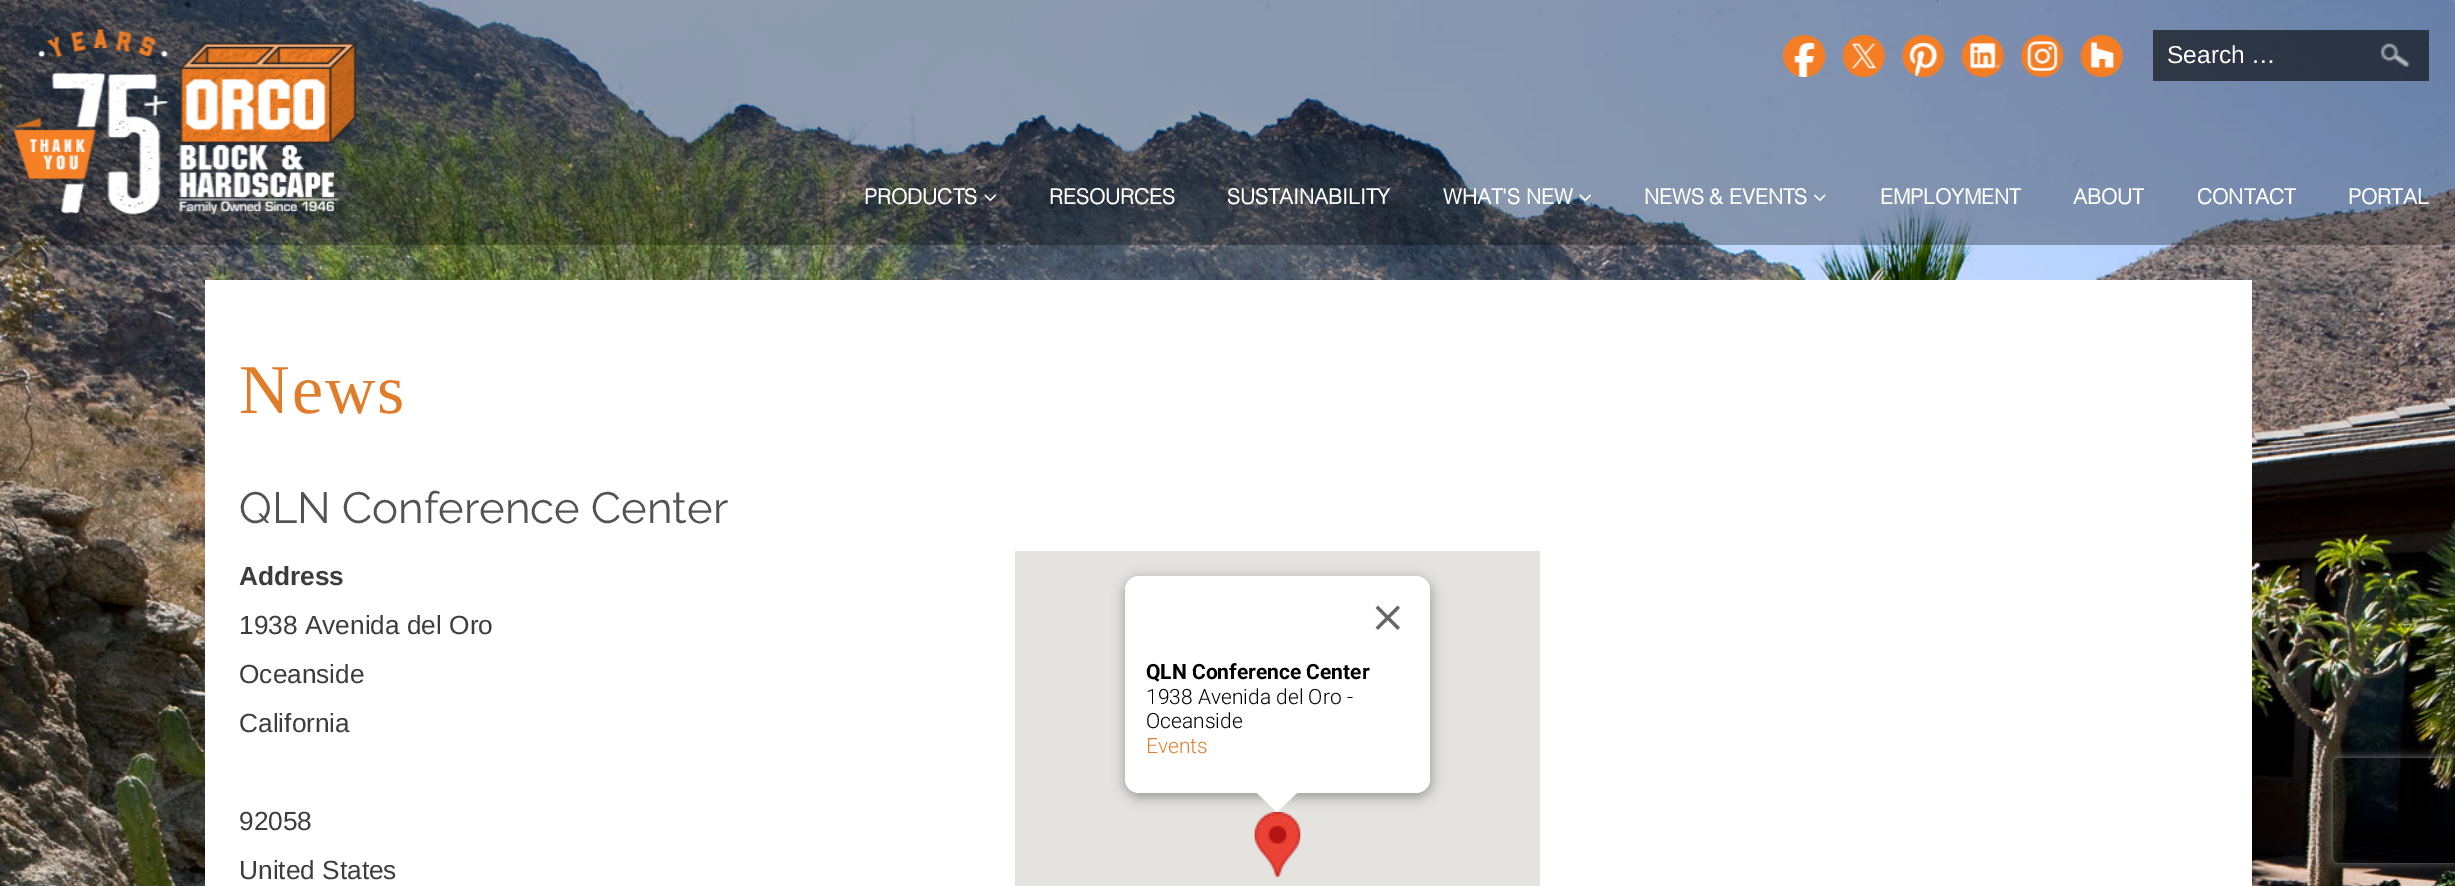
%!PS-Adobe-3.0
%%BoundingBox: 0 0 2455 886
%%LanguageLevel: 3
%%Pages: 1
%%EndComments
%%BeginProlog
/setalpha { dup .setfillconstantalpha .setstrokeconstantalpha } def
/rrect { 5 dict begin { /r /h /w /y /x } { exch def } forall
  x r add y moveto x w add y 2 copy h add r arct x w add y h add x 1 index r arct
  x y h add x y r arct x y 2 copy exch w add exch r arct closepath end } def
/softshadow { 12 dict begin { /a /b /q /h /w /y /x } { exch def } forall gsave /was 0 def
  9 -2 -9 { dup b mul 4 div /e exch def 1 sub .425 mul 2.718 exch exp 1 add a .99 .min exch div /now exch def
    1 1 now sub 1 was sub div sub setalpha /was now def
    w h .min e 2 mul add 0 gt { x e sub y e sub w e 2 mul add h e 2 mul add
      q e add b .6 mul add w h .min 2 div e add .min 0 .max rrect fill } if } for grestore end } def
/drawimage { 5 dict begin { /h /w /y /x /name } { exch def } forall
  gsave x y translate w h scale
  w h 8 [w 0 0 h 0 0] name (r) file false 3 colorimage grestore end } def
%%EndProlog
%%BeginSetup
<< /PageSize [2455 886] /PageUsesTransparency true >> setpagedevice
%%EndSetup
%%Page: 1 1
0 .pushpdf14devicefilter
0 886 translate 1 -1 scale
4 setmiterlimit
1 setgray
0 0 2455 886 rectfill
(images/1.raw) 0 0 2455 886 drawimage
0.31 setalpha
0 setgray
0 0 2455 245 rectfill
1 setalpha
(images/2.raw) 13 29 344 186 drawimage
(images/3.raw) 1783 35 43 42 drawimage
(images/4.raw) 1842 35 44 42 drawimage
(images/5.raw) 1902 35 43 42 drawimage
(images/6.raw) 1961 35 44 42 drawimage
(images/7.raw) 2021 35 43 42 drawimage
(images/8.raw) 2080 35 44 42 drawimage
0.6 setalpha
2153 30 276 51 rectfill
1 setalpha
(images/9.raw) 2380 43 30 24 drawimage
(images/10.raw) 984 194 13 8 drawimage
(images/11.raw) 1579 194 12 8 drawimage
(images/12.raw) 1814 194 12 8 drawimage
1 setgray
205 280 2047 606 rectfill
0.898 0.89 0.875 setrgbcolor
1015 551 525 335 rectfill
(images/14.raw) 1254 812 47 65 drawimage
0 setgray
1124 578 308 220 16 6 0.3 softshadow
1 setgray
1125 576 305 217 14 rrect fill
(images/13.raw) 1375 605 25 25 drawimage
newpath 1257 791 moveto 1257 793 lineto 1277 812 lineto 1299 791 lineto closepath fill
gsave
newpath 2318 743 moveto 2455 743 lineto 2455 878 lineto 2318 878 lineto closepath 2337 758 moveto 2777 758 lineto 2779 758 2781 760 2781 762 curveto 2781 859 lineto 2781 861 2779 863 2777 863 curveto 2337 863 lineto 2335 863 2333 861 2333 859 curveto 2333 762 lineto 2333 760 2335 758 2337 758 curveto closepath eoclip newpath
0.502 setgray
2333 758 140 105 4 4.5 1 softshadow
grestore
/LiberationSans-Regular [24.5 0 0 -24.5 0 0] selectfont
2167 63 moveto (Search …) show
/Helvetica-Bold [21 0 0 -21 0 0] selectfont
864 204 moveto (PRODUCTS) show
1049 204 moveto (RESOURCES) show
1227 204 moveto (SUSTAINABILITY) show
1443 204 moveto (WHAT'S NEW) show
1644 204 moveto (NEWS & EVENTS) show
1880 204 moveto (EMPLOYMENT) show
2073 204 moveto (ABOUT) show
2197 204 moveto (CONTACT) show
2348 204 moveto (PORTAL) show
/LiberationSerif-Regular [70 0 0 -70 0 0] selectfont
0.878 0.49 0.169 setrgbcolor
239 413 moveto 2 0 (News) ashow
/Raleway-Regular [43.75 0 0 -43.75 0 0] selectfont
0.325 setgray
239 523 moveto (QLN Conference Center) show
/LiberationSans-Bold [26.25 0 0 -26.25 0 0] selectfont
0.235 setgray
239 585 moveto (Address) show
/LiberationSans-Regular [26.25 0 0 -26.25 0 0] selectfont
239 634 moveto (1938 Avenida del Oro) show
239 683 moveto (Oceanside) show
239 732 moveto (California) show
239 830 moveto (92058) show
239 879 moveto (United States) show
/Roboto-Bold [21 0 0 -21 0 0] selectfont
0 setgray
1146 679 moveto (QLN Conference Center) show
/Roboto-Light [21 0 0 -21 0 0] selectfont
1146 704 moveto (1938 Avenida del Oro -) show
1146 728 moveto (Oceanside) show
0.878 0.49 0.169 setrgbcolor
1146 753 moveto (Events) show
.poppdf14devicefilter showpage
%%EOF
